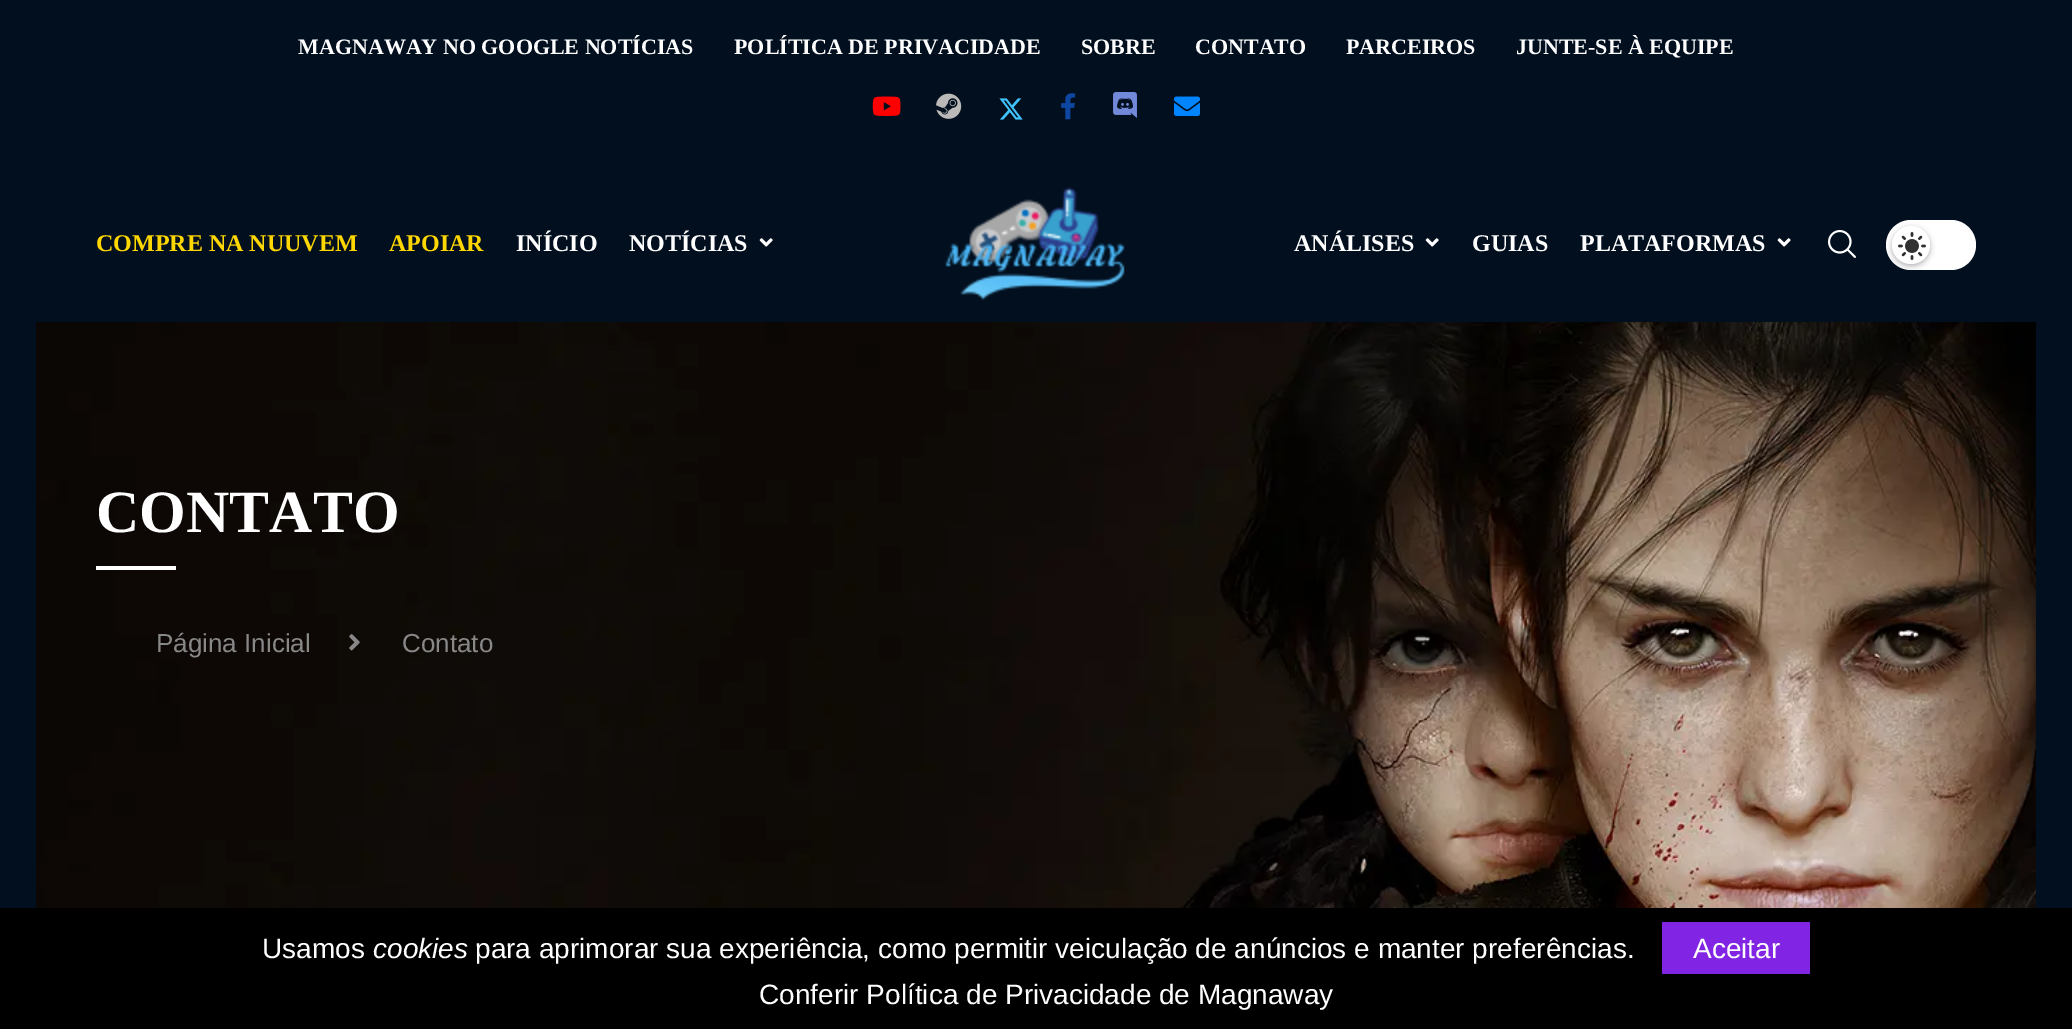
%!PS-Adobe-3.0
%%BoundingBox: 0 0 2072 1029
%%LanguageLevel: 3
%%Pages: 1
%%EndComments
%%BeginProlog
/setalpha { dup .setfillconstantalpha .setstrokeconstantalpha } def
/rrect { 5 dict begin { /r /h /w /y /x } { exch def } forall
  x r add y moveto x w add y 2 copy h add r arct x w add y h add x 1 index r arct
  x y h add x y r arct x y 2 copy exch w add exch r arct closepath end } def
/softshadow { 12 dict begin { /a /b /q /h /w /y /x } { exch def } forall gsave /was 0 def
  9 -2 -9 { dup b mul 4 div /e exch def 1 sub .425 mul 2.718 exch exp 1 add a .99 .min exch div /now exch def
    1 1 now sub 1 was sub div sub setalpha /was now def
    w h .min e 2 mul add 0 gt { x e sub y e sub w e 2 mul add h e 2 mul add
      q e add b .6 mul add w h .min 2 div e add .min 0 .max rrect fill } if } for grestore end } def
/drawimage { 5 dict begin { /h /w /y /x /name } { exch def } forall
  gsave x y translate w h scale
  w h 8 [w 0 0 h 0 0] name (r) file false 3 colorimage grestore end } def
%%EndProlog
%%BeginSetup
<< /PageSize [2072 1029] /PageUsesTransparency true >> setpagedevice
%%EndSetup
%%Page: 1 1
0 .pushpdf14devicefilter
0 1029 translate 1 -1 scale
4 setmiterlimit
0.008 0.059 0.122 setrgbcolor
0 0 2072 1029 rectfill
(images/1.raw) 872 96 29 20 drawimage
(images/2.raw) 936 93 26 26 drawimage
(images/3.raw) 999 98 24 22 drawimage
(images/4.raw) 1061 93 15 27 drawimage
(images/5.raw) 1113 92 24 26 drawimage
(images/6.raw) 1174 96 26 20 drawimage
(images/7.raw) 759 238 14 9 drawimage
(images/8.raw) 945 187 181 114 drawimage
(images/9.raw) 1425 238 14 9 drawimage
(images/10.raw) 1777 238 14 9 drawimage
(images/11.raw) 1828 230 28 28 drawimage
1 setgray
1886 220 90 50 25 rrect fill
0 setgray
1892 228 38 38 19 3 0.3 softshadow
1 setgray
newpath 1911 245 19 0 360 arc closepath fill
(images/12.raw) 1898 232 28 28 drawimage
(images/13.raw) 36 322 2000 586 drawimage
96 566 80 4 rectfill
(images/14.raw) 349 634 11 17 drawimage
0 setgray
0 908 2072 121 rectfill
0.51 0.141 0.89 setrgbcolor
1662 922 148 52 rectfill
/LiberationSerif-Bold [22 0 0 -22 0 0] selectfont
1 setgray
298 54 moveto (MAGNAWAY NO GOOGLE NOTÍCIAS) show
734 54 moveto (POLÍTICA DE PRIVACIDADE) show
1081 54 moveto (SOBRE) show
1195 54 moveto (CONTATO) show
1346 54 moveto (PARCEIROS) show
1516 54 moveto (JUNTE-SE À EQUIPE) show
/LiberationSerif-Bold [24 0 0 -24 0 0] selectfont
1 0.843 0 setrgbcolor
96 251 moveto (COMPRE NA NUUVEM) show
389 251 moveto (APOIAR) show
1 setgray
516 251 moveto (INÍCIO) show
629 251 moveto (NOTÍCIAS) show
1294 251 moveto (ANÁLISES) show
1472 251 moveto (GUIAS) show
1580 251 moveto (PLATAFORMAS) show
/LiberationSerif-Bold [60 0 0 -60 0 0] selectfont
96 532 moveto (CONTATO) show
/LiberationSans-Regular [26 0 0 -26 0 0] selectfont
0.533 setgray
156 652 moveto (Página Inicial) show
402 652 moveto (Contato) show
/LiberationSans-Regular [28 0 0 -28 0 0] selectfont
1 setgray
262 958 moveto (Usamos) show
/LiberationSans-Italic [28 0 0 -28 0 0] selectfont
373 958 moveto (cookies) show
/LiberationSans-Regular [28 0 0 -28 0 0] selectfont
475 958 moveto (para aprimorar sua experiência, como permitir veiculação de anúncios e manter preferências.) show
1693 958 moveto (Aceitar) show
759 1004 moveto (Conferir Política de Privacidade de Magnaway) show
.poppdf14devicefilter showpage
%%EOF
